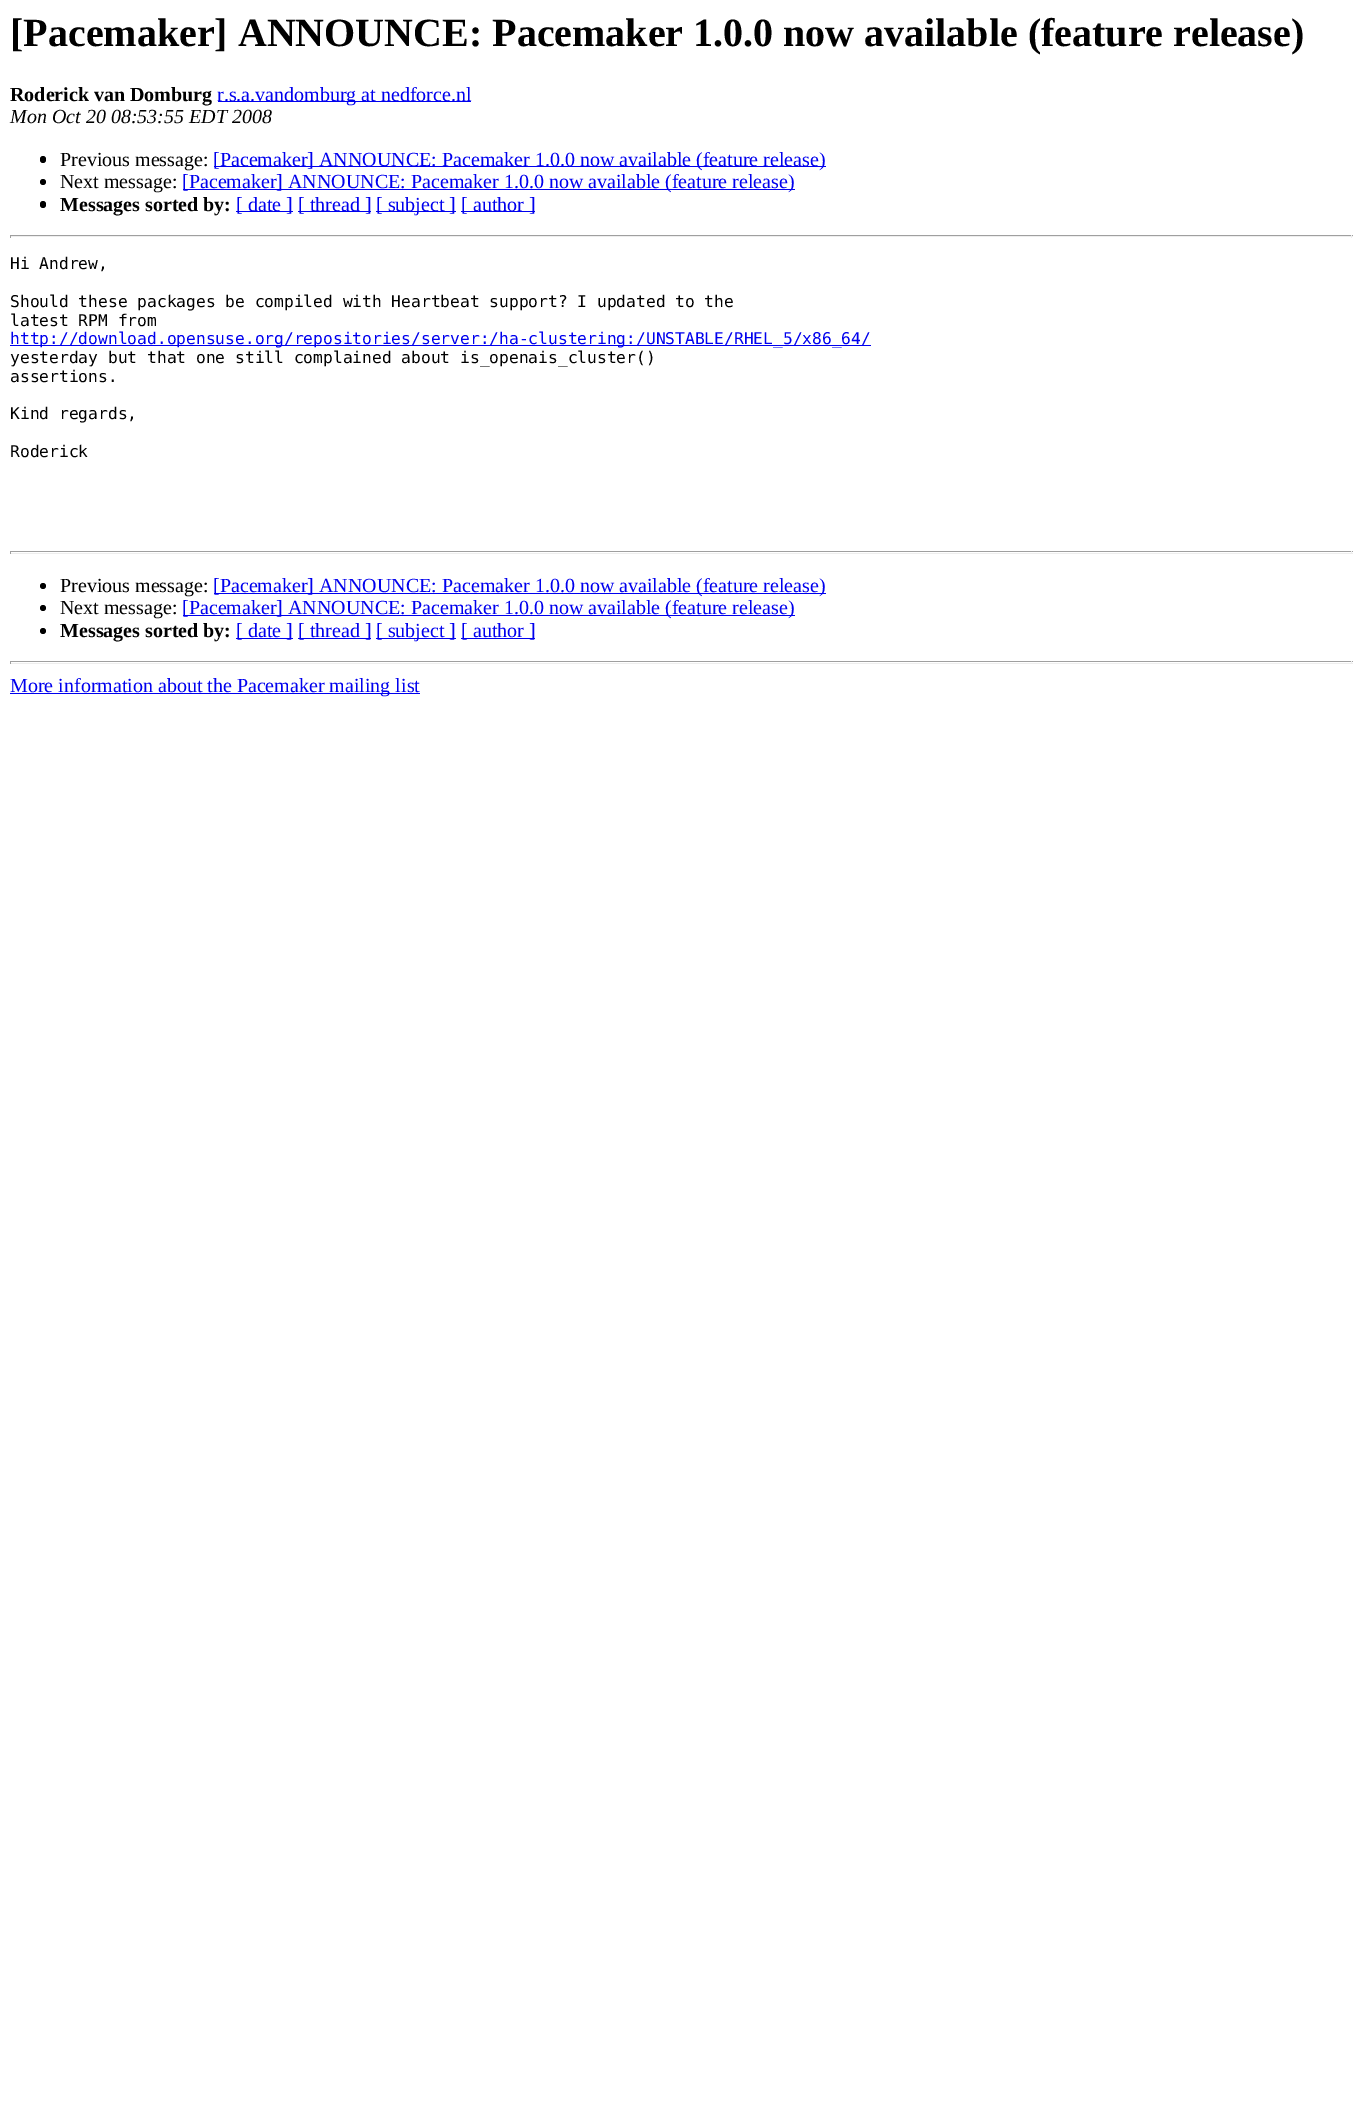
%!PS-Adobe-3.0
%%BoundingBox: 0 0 1362 2115
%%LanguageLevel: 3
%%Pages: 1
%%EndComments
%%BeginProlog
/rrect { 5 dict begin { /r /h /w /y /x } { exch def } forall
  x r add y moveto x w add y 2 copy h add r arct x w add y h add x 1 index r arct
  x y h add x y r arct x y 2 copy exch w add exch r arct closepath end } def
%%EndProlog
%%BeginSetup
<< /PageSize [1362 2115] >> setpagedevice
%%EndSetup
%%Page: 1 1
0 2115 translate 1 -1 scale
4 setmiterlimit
1 setgray
0 0 1362 2115 rectfill
0 0 0.933 setrgbcolor
218 101 253 1 rectfill
0 setgray
40 156 6 7 3 rrect fill
0 0 0.933 setrgbcolor
214 166 612 1 rectfill
0 setgray
newpath 43 182 3 0 360 arc closepath fill
0 0 0.933 setrgbcolor
183 189 612 1 rectfill
0 setgray
40 201 6 7 3 rrect fill
0 0 0.933 setrgbcolor
236 211 57 1 rectfill
298 211 73 1 rectfill
376 211 80 1 rectfill
461 211 74 1 rectfill
0.624 setgray
10 235 1343 1 rectfill
0.933 setgray
1351 235 1 3 rectfill
10 236 1343 1 rectfill
0.624 setgray
10 235 1 3 rectfill
0 0 0.933 setrgbcolor
10 345 861 1 rectfill
0.624 setgray
10 551 1343 1 rectfill
0.933 setgray
1351 551 1 3 rectfill
10 553 1343 1 rectfill
0.624 setgray
10 551 1 3 rectfill
0 setgray
newpath 43 586 3 0 360 arc closepath fill
0 0 0.933 setrgbcolor
214 593 612 1 rectfill
0 setgray
newpath 43 608 3 0 360 arc closepath fill
0 0 0.933 setrgbcolor
183 615 612 1 rectfill
0 setgray
newpath 43 631 3 0 360 arc closepath fill
0 0 0.933 setrgbcolor
236 638 57 1 rectfill
298 638 73 1 rectfill
376 638 80 1 rectfill
461 638 74 1 rectfill
0.624 setgray
10 661 1343 1 rectfill
0.933 setgray
1351 661 1 3 rectfill
10 663 1343 1 rectfill
0.624 setgray
10 661 1 3 rectfill
0 0 0.933 setrgbcolor
10 693 410 1 rectfill
/LiberationSerif-Bold [40 0 0 -40 0 0] selectfont
0 setgray
10 46 moveto ([Pacemaker] ANNOUNCE: Pacemaker 1.0.0 now available \(feature release\)) show
/LiberationSerif-Bold [20 0 0 -20 0 0] selectfont
10 101 moveto (Roderick van Domburg) show
/LiberationSerif-Regular [20 0 0 -20 0 0] selectfont
0 0 0.933 setrgbcolor
217 101 moveto (r.s.a.vandomburg at nedforce.nl) show
/LiberationSerif-Italic [20 0 0 -20 0 0] selectfont
0 setgray
10 123 moveto (Mon Oct 20 08:53:55 EDT 2008) show
/LiberationSerif-Regular [20 0 0 -20 0 0] selectfont
60 166 moveto (Previous message:) show
0 0 0.933 setrgbcolor
213 166 moveto ([Pacemaker] ANNOUNCE: Pacemaker 1.0.0 now available \(feature release\)) show
0 setgray
60 188 moveto (Next message:) show
0 0 0.933 setrgbcolor
182 188 moveto ([Pacemaker] ANNOUNCE: Pacemaker 1.0.0 now available \(feature release\)) show
/LiberationSerif-Bold [20 0 0 -20 0 0] selectfont
0 setgray
60 211 moveto (Messages sorted by:) show
/LiberationSerif-Regular [20 0 0 -20 0 0] selectfont
0 0 0.933 setrgbcolor
236 211 moveto ([ date ]) show
298 211 moveto ([ thread ]) show
376 211 moveto ([ subject ]) show
461 211 moveto ([ author ]) show
/DejaVuSansMono-Regular [16.25 0 0 -16.25 0 0] selectfont
0 setgray
10 269 moveto (Hi Andrew,) show
10 307 moveto (Should these packages be compiled with Heartbeat support? I updated to the) show
10 326 moveto (latest RPM from) show
0 0 0.933 setrgbcolor
10 344 moveto (http://download.opensuse.org/repositories/server:/ha-clustering:/UNSTABLE/RHEL_5/x86_64/) show
0 setgray
10 363 moveto (yesterday but that one still complained about is_openais_cluster\(\)) show
10 382 moveto (assertions.) show
10 419 moveto (Kind regards,) show
10 457 moveto (Roderick) show
/LiberationSerif-Regular [20 0 0 -20 0 0] selectfont
60 592 moveto (Previous message:) show
0 0 0.933 setrgbcolor
213 592 moveto ([Pacemaker] ANNOUNCE: Pacemaker 1.0.0 now available \(feature release\)) show
0 setgray
60 614 moveto (Next message:) show
0 0 0.933 setrgbcolor
182 614 moveto ([Pacemaker] ANNOUNCE: Pacemaker 1.0.0 now available \(feature release\)) show
/LiberationSerif-Bold [20 0 0 -20 0 0] selectfont
0 setgray
60 637 moveto (Messages sorted by:) show
/LiberationSerif-Regular [20 0 0 -20 0 0] selectfont
0 0 0.933 setrgbcolor
236 637 moveto ([ date ]) show
298 637 moveto ([ thread ]) show
376 637 moveto ([ subject ]) show
461 637 moveto ([ author ]) show
10 692 moveto (More information about the Pacemaker mailing list) show
showpage
%%EOF
